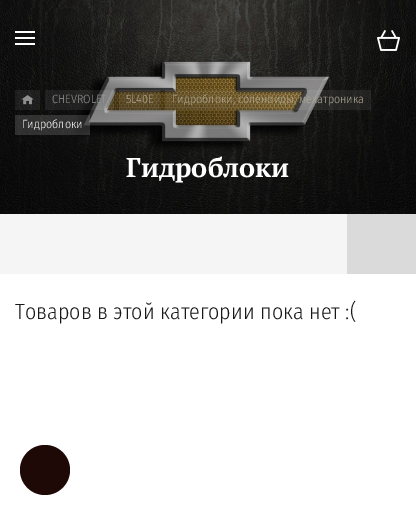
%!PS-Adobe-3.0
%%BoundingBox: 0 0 416 515
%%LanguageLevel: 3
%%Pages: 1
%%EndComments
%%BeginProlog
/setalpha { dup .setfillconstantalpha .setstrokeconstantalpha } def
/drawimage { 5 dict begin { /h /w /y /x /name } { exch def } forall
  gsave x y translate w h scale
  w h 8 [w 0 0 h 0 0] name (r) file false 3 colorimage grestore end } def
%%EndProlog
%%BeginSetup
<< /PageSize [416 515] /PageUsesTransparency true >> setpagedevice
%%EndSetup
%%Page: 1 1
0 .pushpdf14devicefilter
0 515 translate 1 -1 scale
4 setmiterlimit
1 setgray
0 0 416 515 rectfill
(images/2.raw) 0 0 416 214 drawimage
15 31 20 2 rectfill
15 37 20 2 rectfill
15 43 20 2 rectfill
(images/1.raw) 377 30 23 21 drawimage
0.07 setalpha
15 90 25 20 rectfill
1 setalpha
(images/3.raw) 21 95 13 10 drawimage
0.07 setalpha
45 90 69 20 rectfill
119 90 41 20 rectfill
165 90 206 20 rectfill
0.15 setalpha
15 115 75 20 rectfill
1 setalpha
0.961 setgray
0 214 347 60 rectfill
0.855 setgray
347 214 69 60 rectfill
0.122 0.035 0.024 setrgbcolor
newpath 45 470 25 0 360 arc closepath fill
/FiraSansCondensed-Light [12 0 0 -12 0 0] selectfont
0.588 setgray
52 103 moveto (CHEVROLET) show
0.69 0.655 0.584 setrgbcolor
126 103 moveto (5L40E) show
172 103 moveto (Гидроблоки, соленоиды, мехатроника) show
1 setgray
22 128 moveto (Гидроблоки) show
/PTSerif-Bold [27 0 0 -27 0 0] selectfont
126 177 moveto (Гидроблоки) show
/FiraSansCondensed-Light [22 0 0 -22 0 0] selectfont
0.094 setgray
15 319 moveto (Товаров в этой категории пока нет :\() show
.poppdf14devicefilter showpage
%%EOF
